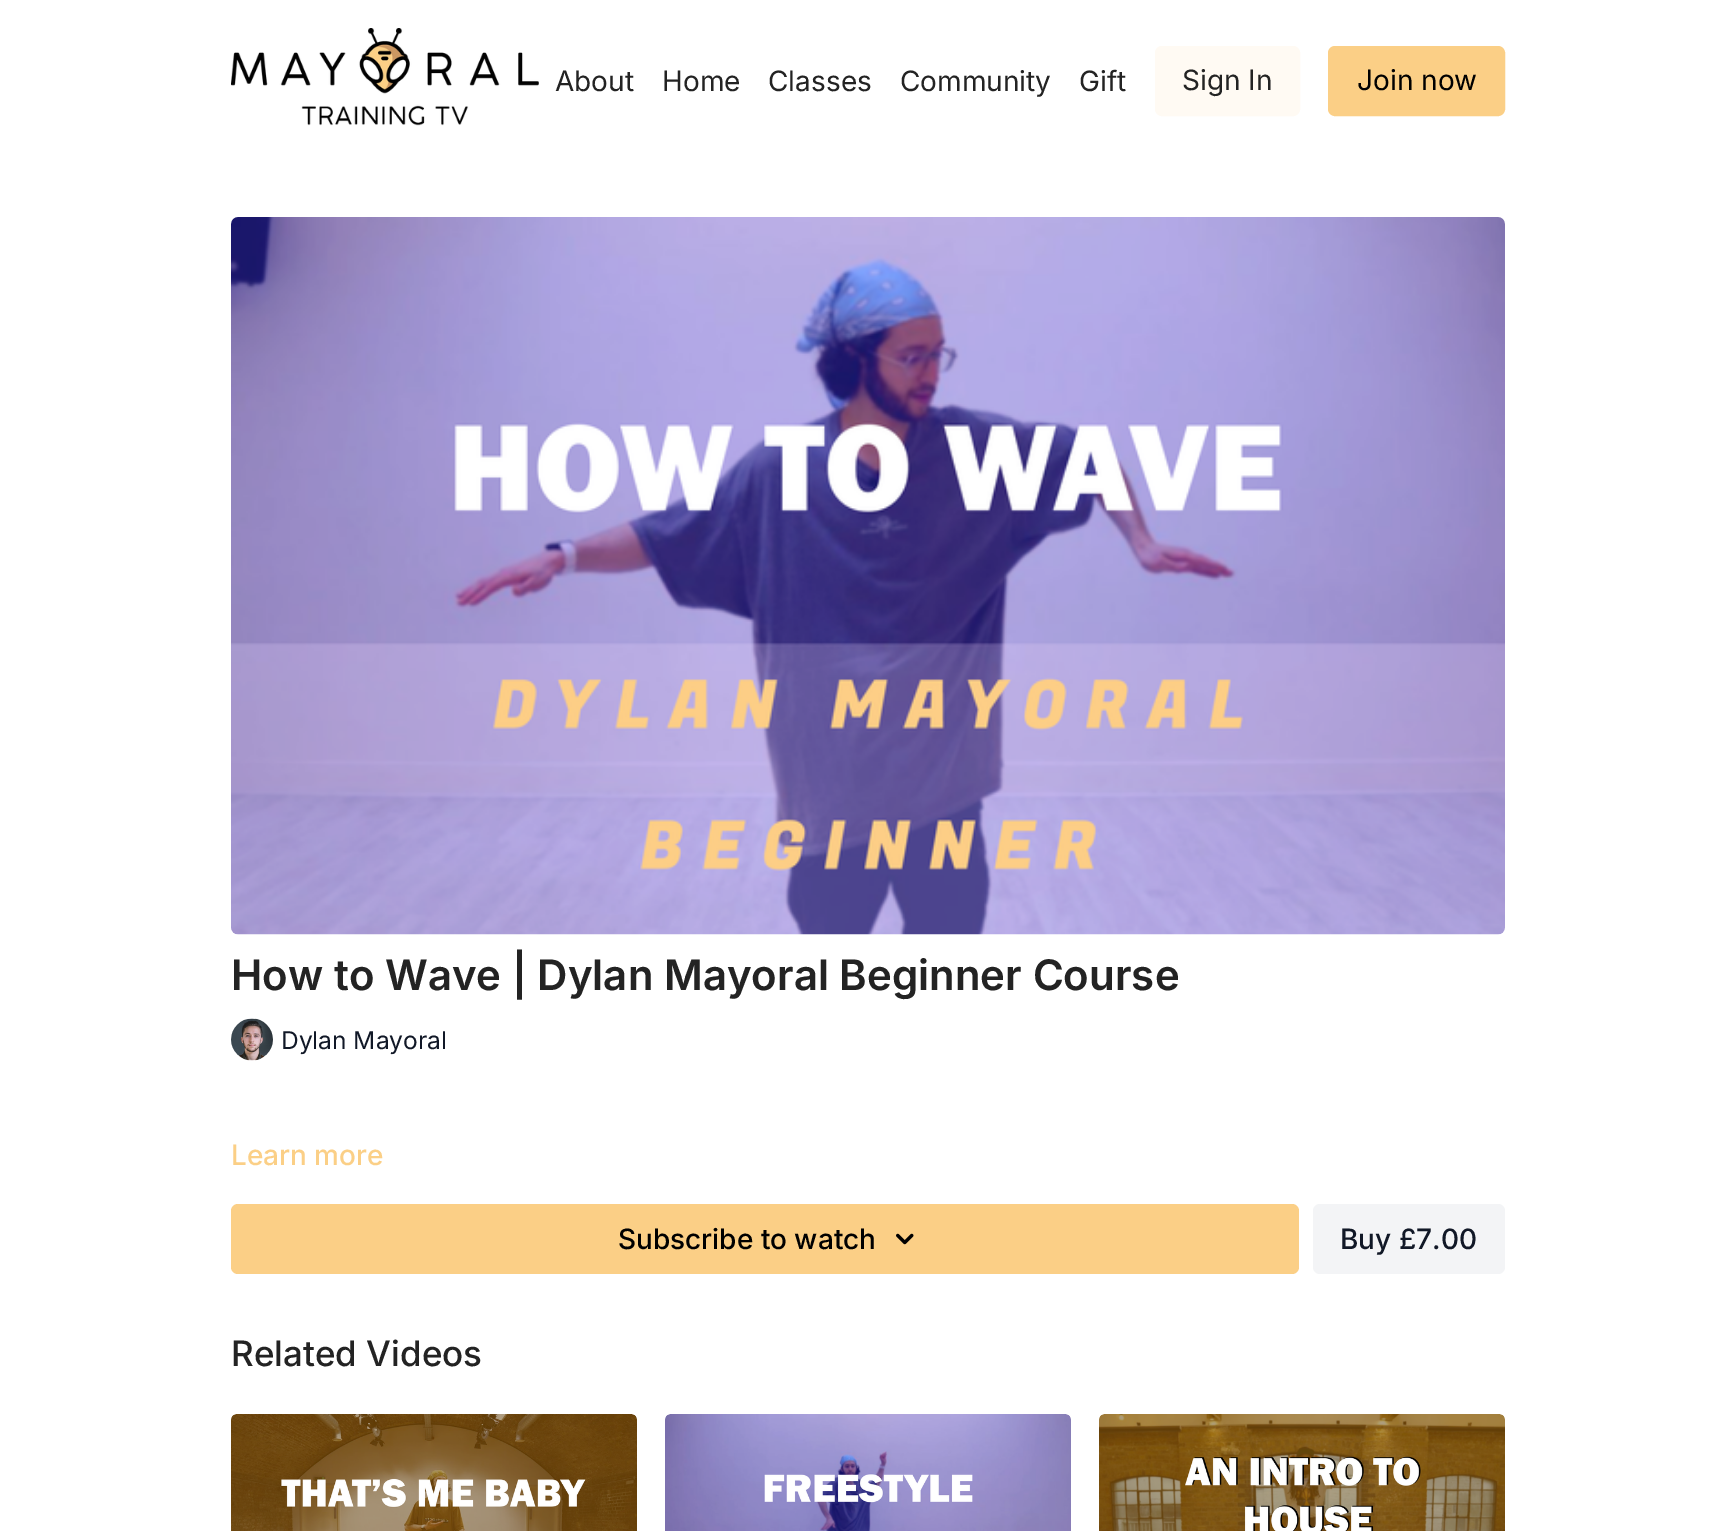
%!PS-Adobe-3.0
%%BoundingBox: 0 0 1736 1531
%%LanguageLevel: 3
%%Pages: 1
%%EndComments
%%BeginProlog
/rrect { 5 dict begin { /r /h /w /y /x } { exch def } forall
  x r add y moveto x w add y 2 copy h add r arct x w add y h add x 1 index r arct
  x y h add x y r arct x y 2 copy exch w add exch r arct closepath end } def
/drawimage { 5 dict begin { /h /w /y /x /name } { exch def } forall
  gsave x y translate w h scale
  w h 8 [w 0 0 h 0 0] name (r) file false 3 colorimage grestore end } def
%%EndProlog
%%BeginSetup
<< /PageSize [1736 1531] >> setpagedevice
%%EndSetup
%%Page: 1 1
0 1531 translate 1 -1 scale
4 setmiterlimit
1 setgray
0 0 1736 1531 rectfill
(images/1.raw) 231 28 308 98 drawimage
1 0.98 0.953 setrgbcolor
1156 47 143 68 6 rrect gsave fill grestore
2 setlinewidth
stroke
0.984 0.812 0.525 setrgbcolor
1329 47 175 68 6 rrect gsave fill grestore
stroke
(images/2.raw) 231 217 1274 718 drawimage
(images/3.raw) 231 1018 42 43 drawimage
231 1204 1068 70 7 rrect fill
(images/4.raw) 896 1233 18 12 drawimage
0.953 0.957 0.965 setrgbcolor
1313 1204 192 70 7 rrect fill
(images/5.raw) 231 1414 406 117 drawimage
(images/6.raw) 665 1414 406 117 drawimage
(images/7.raw) 1099 1414 406 117 drawimage
/Inter-Regular [28 0 0 -28 0 0] selectfont
0.137 setgray
555 91 moveto (About) show
662 91 moveto (Home) show
768 91 moveto (Classes) show
900 91 moveto (Community) show
1079 91 moveto (Gift) show
1182 90 moveto (Sign In) show
0 setgray
1357 90 moveto (Join now) show
/Inter-SemiBold [42 0 0 -42 0 0] selectfont
0.137 setgray
231 990 moveto (How to Wave | Dylan Mayoral Beginner Course) show
/Inter-Regular [24.5 0 0 -24.5 0 0] selectfont
0.067 0.094 0.153 setrgbcolor
281 1049 moveto (Dylan Mayoral) show
/Inter-Medium [28 0 0 -28 0 0] selectfont
0.984 0.812 0.525 setrgbcolor
231 1165 moveto (Learn more) show
0 setgray
618 1249 moveto (Subscribe to watch) show
0.067 0.094 0.153 setrgbcolor
1340 1249 moveto (Buy £7.00) show
/Inter-Medium [35 0 0 -35 0 0] selectfont
0.137 setgray
231 1366 moveto (Related Videos) show
showpage
%%EOF
